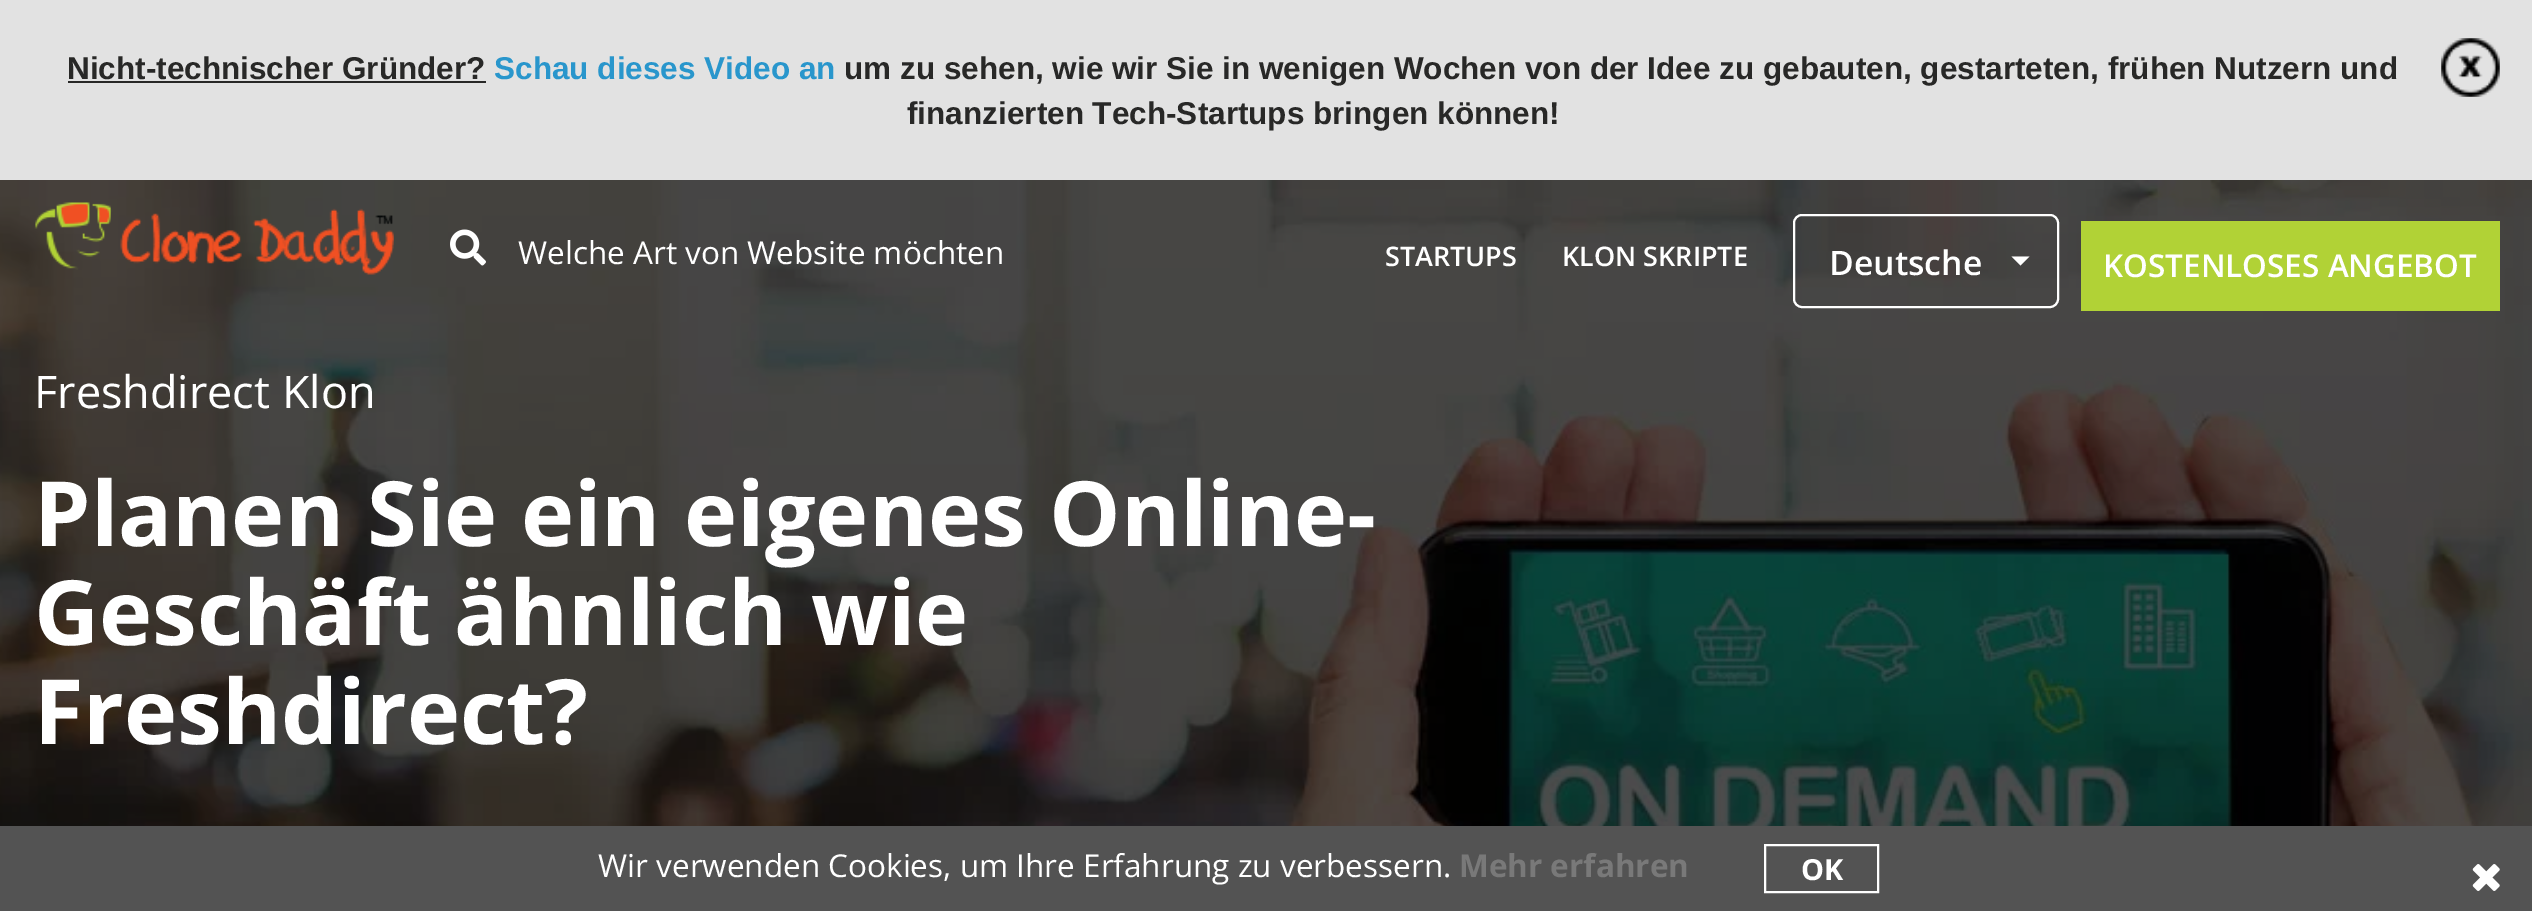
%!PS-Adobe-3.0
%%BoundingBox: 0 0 2532 911
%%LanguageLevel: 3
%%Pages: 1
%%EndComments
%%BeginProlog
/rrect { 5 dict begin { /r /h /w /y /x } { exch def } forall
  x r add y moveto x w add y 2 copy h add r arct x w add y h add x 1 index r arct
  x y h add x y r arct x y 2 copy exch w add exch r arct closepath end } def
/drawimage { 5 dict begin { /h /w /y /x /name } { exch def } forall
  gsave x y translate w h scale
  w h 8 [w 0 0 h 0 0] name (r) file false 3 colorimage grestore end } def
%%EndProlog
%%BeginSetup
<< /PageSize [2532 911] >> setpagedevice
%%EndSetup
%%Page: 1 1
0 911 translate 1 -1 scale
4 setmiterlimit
1 setgray
0 0 2532 911 rectfill
0.886 setgray
0 0 2532 180 rectfill
0.157 0.157 0.153 setrgbcolor
68 81 418 2 rectfill
(images/1.raw) 2441 38 59 59 drawimage
(images/4.raw) 0 180 2532 646 drawimage
(images/2.raw) 34 202 360 73 drawimage
(images/3.raw) 450 229 36 37 drawimage
1 setgray
2 setlinewidth
1794 215 264 92 8 rrect stroke
newpath 2011.5 256.5 moveto 2029.5 256.5 lineto 2020.5 265.5 lineto closepath fill
0.694 0.824 0.212 setrgbcolor
2081 221 419 90 rectfill
0.325 setgray
0 826 2532 85 rectfill
1 setgray
1765 845 113 47 rectstroke
(images/5.raw) 2472 864 28 27 drawimage
/LiberationSans-Bold [31.5 0 0 -31.5 0 0] selectfont
0.157 0.157 0.153 setrgbcolor
67 79 moveto (Nicht-technischer Gründer?) show
0.161 0.588 0.8 setrgbcolor
494 79 moveto (Schau dieses Video an) show
0.157 0.157 0.153 setrgbcolor
844 79 moveto (um zu sehen, wie wir Sie in wenigen Wochen von der Idee zu gebauten, gestarteten, frühen Nutzern und) show
907 124 moveto (finanzierten Tech-Startups bringen können!) show
/OpenSans-Regular [31.5 0 0 -31.5 0 0] selectfont
1 setgray
518 264 moveto (Welche Art von Website möchten) show
/OpenSans-SemiBold [27 0 0 -27 0 0] selectfont
1385 266 moveto (STARTUPS) show
1562 266 moveto (KLON SKRIPTE) show
/OpenSans-SemiBold [33.75 0 0 -33.75 0 0] selectfont
1829 275 moveto (Deutsche) show
/OpenSans-SemiBold [31.5 0 0 -31.5 0 0] selectfont
2103 277 moveto (KOSTENLOSES ANGEBOT) show
/OpenSans-Regular [45 0 0 -45 0 0] selectfont
34 408 moveto (Freshdirect Klon) show
/OpenSans-Bold [90 0 0 -90 0 0] selectfont
34 546 moveto (Planen Sie ein eigenes Online-) show
34 645 moveto (Geschäft ähnlich wie) show
34 744 moveto (Freshdirect?) show
/OpenSans-Regular [31.5 0 0 -31.5 0 0] selectfont
598 877 moveto (Wir verwenden Cookies, um Ihre Erfahrung zu verbessern.) show
/OpenSans-Bold [31.5 0 0 -31.5 0 0] selectfont
0.475 setgray
1459 877 moveto (Mehr erfahren) show
/OpenSans-Bold [29 0 0 -29 0 0] selectfont
1 setgray
1801 880 moveto (OK) show
showpage
%%EOF
